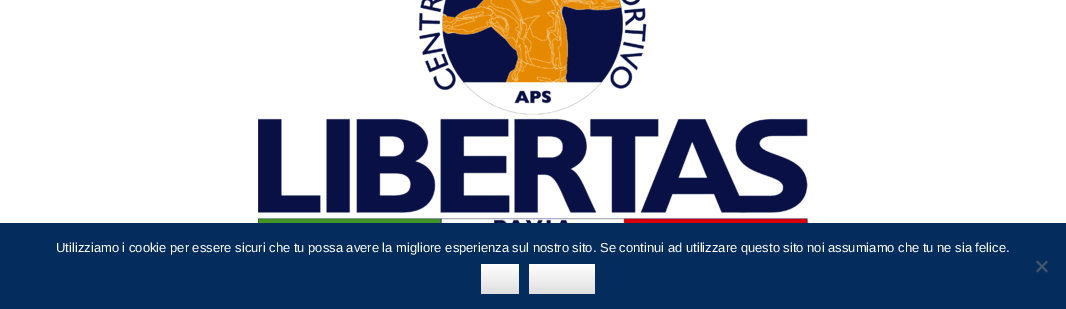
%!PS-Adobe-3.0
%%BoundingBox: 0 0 1066 309
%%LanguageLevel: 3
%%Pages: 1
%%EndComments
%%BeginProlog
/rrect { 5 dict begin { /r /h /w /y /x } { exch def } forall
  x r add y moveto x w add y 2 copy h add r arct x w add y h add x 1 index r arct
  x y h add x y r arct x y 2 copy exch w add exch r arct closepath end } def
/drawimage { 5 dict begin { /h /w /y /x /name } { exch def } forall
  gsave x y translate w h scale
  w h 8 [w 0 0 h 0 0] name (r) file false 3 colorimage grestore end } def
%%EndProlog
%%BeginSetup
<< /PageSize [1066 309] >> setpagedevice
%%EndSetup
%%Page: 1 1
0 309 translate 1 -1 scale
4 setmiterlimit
1 setgray
0 0 1066 309 rectfill
(images/1.raw) 258 0 550 223 drawimage
0.016 0.173 0.361 setrgbcolor
0 223 1066 86 rectfill
gsave 481 264 38 30 3 rrect clip newpath
<< /ShadingType 2 /ColorSpace /DeviceRGB /Coords [481 294 481 264] /Extend [true true] /Function << /FunctionType 2 /Domain [0 1] /C0 [0.875 0.875 0.875] /C1 [1 1 1] /N 1 >> >> shfill grestore
gsave 529 264 66 30 3 rrect clip newpath
<< /ShadingType 2 /ColorSpace /DeviceRGB /Coords [529 294 529 264] /Extend [true true] /Function << /FunctionType 2 /Domain [0 1] /C0 [0.875 0.875 0.875] /C1 [1 1 1] /N 1 >> >> shfill grestore
0.259 0.337 0.431 setrgbcolor
newpath 1046.5 260.5 moveto 1048 262 lineto 1037.5 272.5 lineto 1036 271 lineto closepath fill
newpath 1036 262 moveto 1037.5 260.5 lineto 1048 271 lineto 1046.5 272.5 lineto closepath fill
/LiberationSans-Regular [13 0 0 -13 0 0] selectfont
1 setgray
56 252 moveto (Utilizziamo i cookie per essere sicuri che tu possa avere la migliore esperienza sul nostro sito. Se continui ad utilizzare questo sito noi assumiamo che tu ne sia felice.) show
showpage
%%EOF
